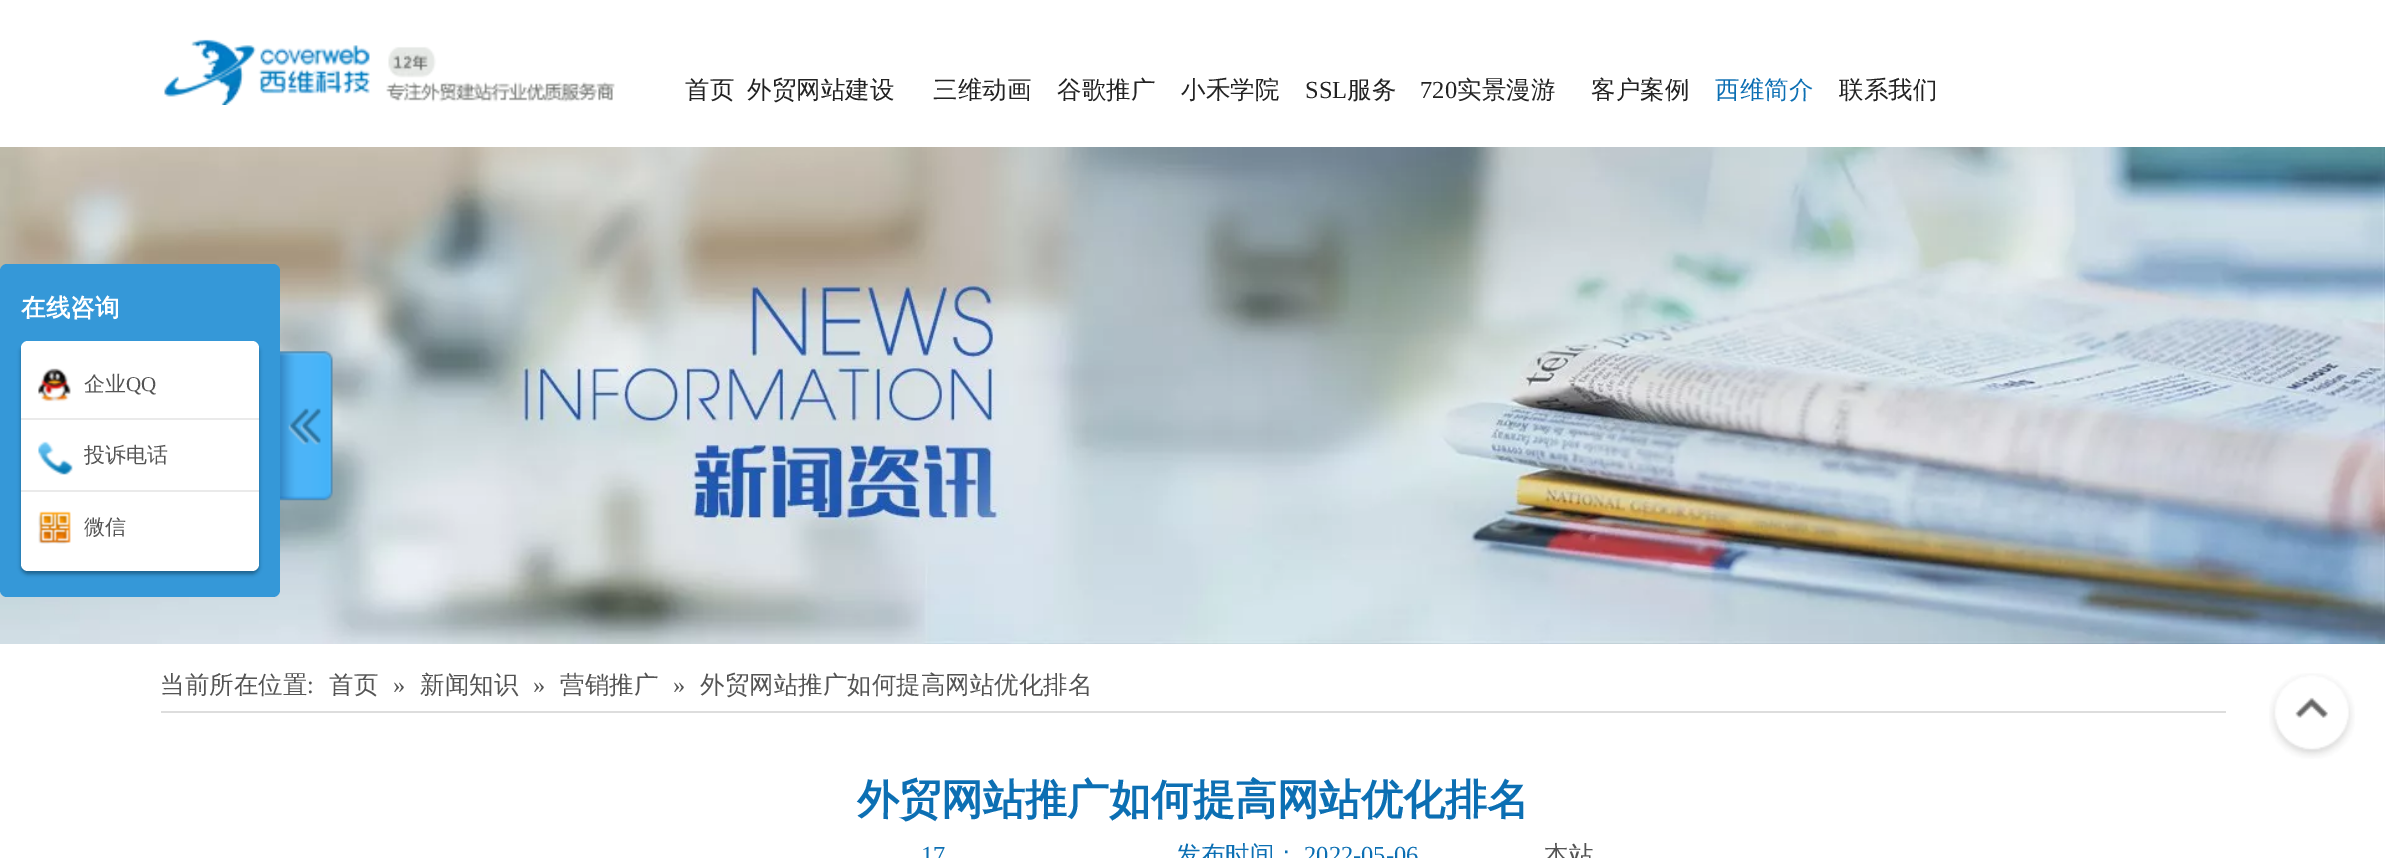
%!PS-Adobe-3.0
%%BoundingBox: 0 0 2385 858
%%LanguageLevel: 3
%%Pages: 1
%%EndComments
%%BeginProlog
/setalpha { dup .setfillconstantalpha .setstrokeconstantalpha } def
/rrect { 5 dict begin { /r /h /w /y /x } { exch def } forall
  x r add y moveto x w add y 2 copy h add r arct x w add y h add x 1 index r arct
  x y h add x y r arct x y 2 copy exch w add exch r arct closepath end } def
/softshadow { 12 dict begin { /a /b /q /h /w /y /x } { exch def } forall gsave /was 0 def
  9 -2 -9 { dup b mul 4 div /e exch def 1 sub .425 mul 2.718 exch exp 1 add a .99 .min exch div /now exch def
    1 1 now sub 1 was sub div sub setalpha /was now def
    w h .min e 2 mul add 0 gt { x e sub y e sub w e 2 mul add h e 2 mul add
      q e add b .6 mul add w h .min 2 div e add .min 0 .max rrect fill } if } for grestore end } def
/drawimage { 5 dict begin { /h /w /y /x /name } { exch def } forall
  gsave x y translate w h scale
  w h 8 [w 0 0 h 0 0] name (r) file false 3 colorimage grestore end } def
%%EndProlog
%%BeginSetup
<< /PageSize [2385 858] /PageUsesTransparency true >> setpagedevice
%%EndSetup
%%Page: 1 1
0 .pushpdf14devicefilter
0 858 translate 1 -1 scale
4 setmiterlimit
1 setgray
0 0 2385 858 rectfill
(images/1.raw) 164 39 451 66 drawimage
(images/6.raw) 0 147 2385 497 drawimage
0.208 0.596 0.847 setrgbcolor
0 264 280 333 7 rrect fill
0.051 0.243 0.365 setrgbcolor
21 345 238 229 7 2 0.6 softshadow
1 setgray
21 341 238 230 7 rrect fill
(images/2.raw) 38 368 33 34 drawimage
0.918 setgray
21 418 238 2 rectfill
(images/3.raw) 38 441 35 34 drawimage
21 490 238 2 rectfill
(images/4.raw) 38 511 33 33 drawimage
(images/5.raw) 280 351 53 150 drawimage
0.867 setgray
161 711 2065 2 rectfill
(images/7.raw) 2269 673 86 86 drawimage
/WenQuanYiZenHei-Medium [24.5 0 0 -24.5 0 0] selectfont
0.133 setgray
685 98 moveto (首页) show
747 98 moveto (外贸网站建设) show
933 98 moveto (三维动画) show
1057 98 moveto (谷歌推广) show
1181 98 moveto (小禾学院) show
/LiberationSerif-Regular [24.5 0 0 -24.5 0 0] selectfont
1305 98 moveto (SSL) show
/WenQuanYiZenHei-Medium [24.5 0 0 -24.5 0 0] selectfont
1347 98 moveto (服务) show
/LiberationSerif-Regular [24.5 0 0 -24.5 0 0] selectfont
1420 98 moveto (720) show
/WenQuanYiZenHei-Medium [24.5 0 0 -24.5 0 0] selectfont
1457 98 moveto (实景漫游) show
1591 98 moveto (客户案例) show
0.047 0.435 0.702 setrgbcolor
1715 98 moveto (西维简介) show
0.133 setgray
1839 98 moveto (联系我们) show
/WenQuanYiZenHei-Bold [24.5 0 0 -24.5 0 0] selectfont
1 setgray
21 316 moveto (在线咨询) show
/WenQuanYiZenHei-Medium [21 0 0 -21 0 0] selectfont
0.329 setgray
84 391 moveto (企业) show
/LiberationSerif-Regular [21 0 0 -21 0 0] selectfont
126 391 moveto (QQ) show
/WenQuanYiZenHei-Medium [21 0 0 -21 0 0] selectfont
84 462 moveto (投诉电话) show
84 534 moveto (微信) show
/WenQuanYiZenHei-Medium [24.5 0 0 -24.5 0 0] selectfont
160 693 moveto (当前所在位置) show
/LiberationSerif-Regular [24.5 0 0 -24.5 0 0] selectfont
307 693 moveto (:) show
/WenQuanYiZenHei-Medium [24.5 0 0 -24.5 0 0] selectfont
329 693 moveto (首页) show
/LiberationSerif-Regular [24.5 0 0 -24.5 0 0] selectfont
393 693 moveto (») show
/WenQuanYiZenHei-Medium [24.5 0 0 -24.5 0 0] selectfont
420 693 moveto (新闻知识) show
/LiberationSerif-Regular [24.5 0 0 -24.5 0 0] selectfont
533 693 moveto (») show
/WenQuanYiZenHei-Medium [24.5 0 0 -24.5 0 0] selectfont
560 693 moveto (营销推广) show
/LiberationSerif-Regular [24.5 0 0 -24.5 0 0] selectfont
673 693 moveto (») show
/WenQuanYiZenHei-Medium [24.5 0 0 -24.5 0 0] selectfont
700 693 moveto (外贸网站推广如何提高网站优化排名) show
/WenQuanYiZenHei-Bold [42 0 0 -42 0 0] selectfont
0.047 0.435 0.702 setrgbcolor
857 814 moveto (外贸网站推广如何提高网站优化排名) show
/LiberationSerif-Regular [24.5 0 0 -24.5 0 0] selectfont
921 863 moveto (17) show
/WenQuanYiZenHei-Medium [24.5 0 0 -24.5 0 0] selectfont
1176 863 moveto (发布时间：) show
/LiberationSerif-Regular [24.5 0 0 -24.5 0 0] selectfont
1304 863 moveto (2022-05-06) show
/WenQuanYiZenHei-Medium [24.5 0 0 -24.5 0 0] selectfont
0.329 setgray
1544 863 moveto (本站) show
.poppdf14devicefilter showpage
%%EOF
